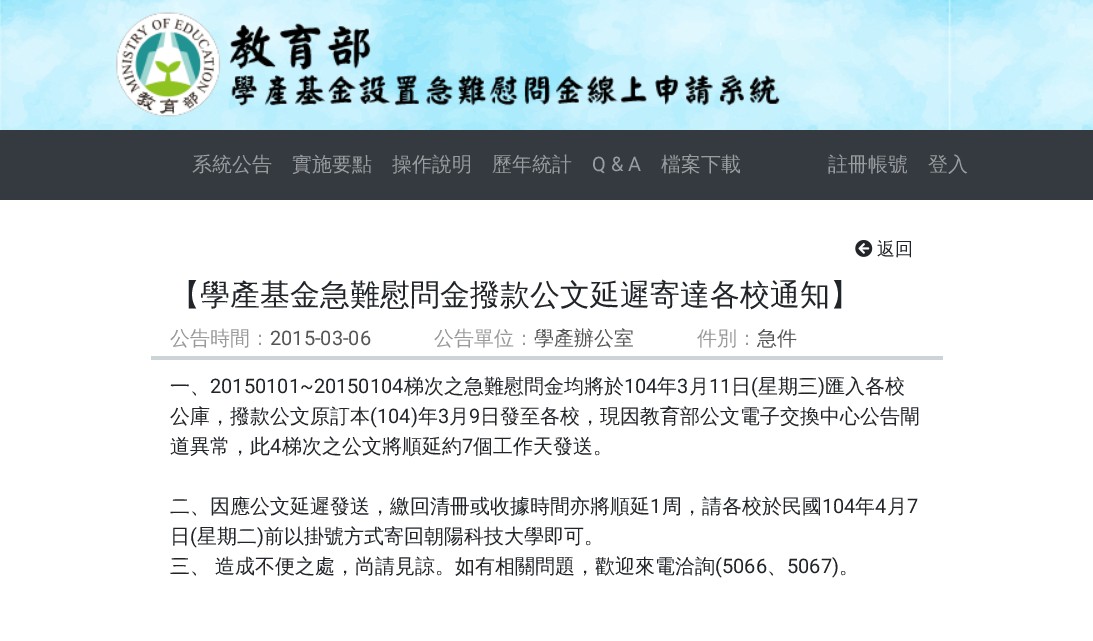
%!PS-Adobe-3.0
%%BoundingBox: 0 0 1093 641
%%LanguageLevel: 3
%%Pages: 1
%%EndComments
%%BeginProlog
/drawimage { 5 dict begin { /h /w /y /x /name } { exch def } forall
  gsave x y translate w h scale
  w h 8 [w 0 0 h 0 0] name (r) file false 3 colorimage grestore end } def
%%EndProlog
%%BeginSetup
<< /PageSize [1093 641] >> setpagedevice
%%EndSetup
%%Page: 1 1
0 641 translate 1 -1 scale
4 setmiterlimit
1 setgray
0 0 1093 641 rectfill
(images/1.raw) 0 0 1093 130 drawimage
(images/2.raw) 116 12 665 105 drawimage
0.204 0.227 0.251 setrgbcolor
0 130 1093 70 rectfill
(images/3.raw) 855 240 18 17 drawimage
0.8 0.831 0.843 setrgbcolor
151 356 792 4 rectfill
/WenQuanYiZenHei-Medium [20 0 0 -20 0 0] selectfont
0.604 0.616 0.627 setrgbcolor
192 171 moveto (系統公告) show
292 171 moveto (實施要點) show
392 171 moveto (操作說明) show
492 171 moveto (歷年統計) show
/Roboto-Regular [20 0 0 -20 0 0] selectfont
592 171 moveto (Q & A) show
/WenQuanYiZenHei-Medium [20 0 0 -20 0 0] selectfont
661 171 moveto (檔案下載) show
828 171 moveto (註冊帳號) show
928 171 moveto (登入) show
/WenQuanYiZenHei-Medium [18 0 0 -18 0 0] selectfont
0.129 0.145 0.161 setrgbcolor
877 255 moveto (返回) show
/WenQuanYiZenHei-Medium [30 0 0 -30 0 0] selectfont
170 305 moveto (【學產基金急難慰問金撥款公文延遲寄達各校通知】) show
/WenQuanYiZenHei-Medium [20 0 0 -20 0 0] selectfont
0.6 setgray
170 345 moveto (公告時間：) show
/Roboto-Regular [20 0 0 -20 0 0] selectfont
0.333 setgray
270 345 moveto (2015-03-06) show
/WenQuanYiZenHei-Medium [20 0 0 -20 0 0] selectfont
0.6 setgray
434 345 moveto (公告單位：) show
0.333 setgray
534 345 moveto (學產辦公室) show
0.6 setgray
697 345 moveto (件別：) show
0.333 setgray
757 345 moveto (急件) show
0.129 0.145 0.161 setrgbcolor
170 393 moveto (一、) show
/Roboto-Regular [20 0 0 -20 0 0] selectfont
210 393 moveto (20150101~20150104) show
/WenQuanYiZenHei-Medium [20 0 0 -20 0 0] selectfont
404 393 moveto (梯次之急難慰問金均將於) show
/Roboto-Regular [20 0 0 -20 0 0] selectfont
624 393 moveto (104) show
/WenQuanYiZenHei-Medium [20 0 0 -20 0 0] selectfont
657 393 moveto (年) show
/Roboto-Regular [20 0 0 -20 0 0] selectfont
677 393 moveto (3) show
/WenQuanYiZenHei-Medium [20 0 0 -20 0 0] selectfont
689 393 moveto (月) show
/Roboto-Regular [20 0 0 -20 0 0] selectfont
709 393 moveto (11) show
/WenQuanYiZenHei-Medium [20 0 0 -20 0 0] selectfont
731 393 moveto (日) show
/Roboto-Regular [20 0 0 -20 0 0] selectfont
751 393 moveto (\() show
/WenQuanYiZenHei-Medium [20 0 0 -20 0 0] selectfont
758 393 moveto (星期三) show
/Roboto-Regular [20 0 0 -20 0 0] selectfont
818 393 moveto (\)) show
/WenQuanYiZenHei-Medium [20 0 0 -20 0 0] selectfont
825 393 moveto (匯入各校) show
170 423 moveto (公庫，撥款公文原訂本) show
/Roboto-Regular [20 0 0 -20 0 0] selectfont
370 423 moveto (\(104\)) show
/WenQuanYiZenHei-Medium [20 0 0 -20 0 0] selectfont
418 423 moveto (年) show
/Roboto-Regular [20 0 0 -20 0 0] selectfont
438 423 moveto (3) show
/WenQuanYiZenHei-Medium [20 0 0 -20 0 0] selectfont
449 423 moveto (月) show
/Roboto-Regular [20 0 0 -20 0 0] selectfont
469 423 moveto (9) show
/WenQuanYiZenHei-Medium [20 0 0 -20 0 0] selectfont
480 423 moveto (日發至各校，現因教育部公文電子交換中心公告閘) show
170 453 moveto (道異常，此) show
/Roboto-Regular [20 0 0 -20 0 0] selectfont
270 453 moveto (4) show
/WenQuanYiZenHei-Medium [20 0 0 -20 0 0] selectfont
282 453 moveto (梯次之公文將順延約) show
/Roboto-Regular [20 0 0 -20 0 0] selectfont
462 453 moveto (7) show
/WenQuanYiZenHei-Medium [20 0 0 -20 0 0] selectfont
473 453 moveto (個工作天發送。) show
170 513 moveto (二、因應公文延遲發送，繳回清冊或收據時間亦將順延) show
/Roboto-Regular [20 0 0 -20 0 0] selectfont
650 513 moveto (1) show
/WenQuanYiZenHei-Medium [20 0 0 -20 0 0] selectfont
662 513 moveto (周，請各校於民國) show
/Roboto-Regular [20 0 0 -20 0 0] selectfont
822 513 moveto (104) show
/WenQuanYiZenHei-Medium [20 0 0 -20 0 0] selectfont
855 513 moveto (年) show
/Roboto-Regular [20 0 0 -20 0 0] selectfont
875 513 moveto (4) show
/WenQuanYiZenHei-Medium [20 0 0 -20 0 0] selectfont
887 513 moveto (月) show
/Roboto-Regular [20 0 0 -20 0 0] selectfont
907 513 moveto (7) show
/WenQuanYiZenHei-Medium [20 0 0 -20 0 0] selectfont
170 543 moveto (日) show
/Roboto-Regular [20 0 0 -20 0 0] selectfont
190 543 moveto (\() show
/WenQuanYiZenHei-Medium [20 0 0 -20 0 0] selectfont
197 543 moveto (星期二) show
/Roboto-Regular [20 0 0 -20 0 0] selectfont
257 543 moveto (\)) show
/WenQuanYiZenHei-Medium [20 0 0 -20 0 0] selectfont
264 543 moveto (前以掛號方式寄回朝陽科技大學即可。) show
170 573 moveto -1 0 32 (三、 造成不便之處，尚請見諒。如有相關問題，歡迎來電洽詢) widthshow
/Roboto-Regular [20 0 0 -20 0 0] selectfont
715 573 moveto (\(5066) show
/WenQuanYiZenHei-Medium [20 0 0 -20 0 0] selectfont
767 573 moveto (、) show
/Roboto-Regular [20 0 0 -20 0 0] selectfont
787 573 moveto (5067\)) show
/WenQuanYiZenHei-Medium [20 0 0 -20 0 0] selectfont
839 573 moveto (。) show
showpage
%%EOF
